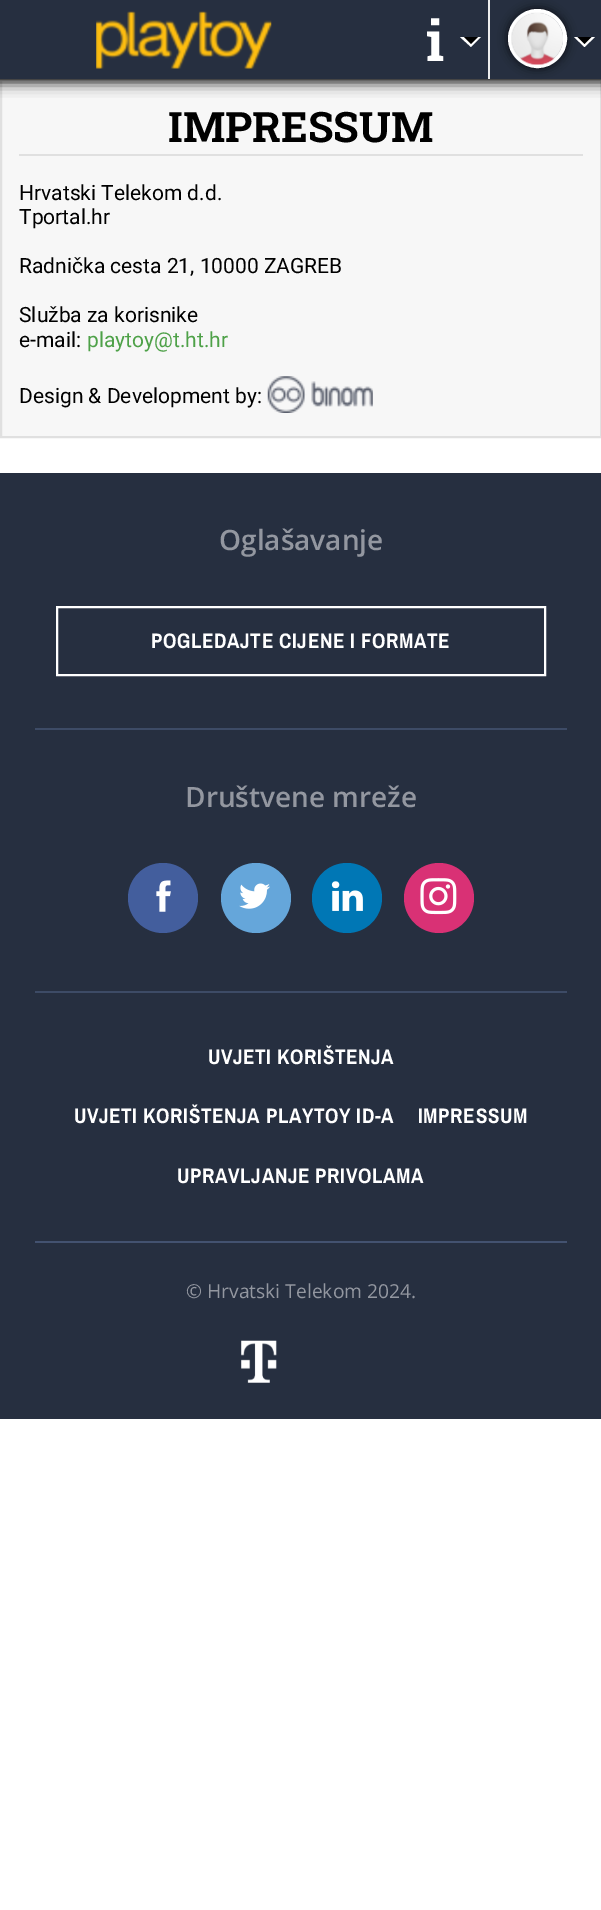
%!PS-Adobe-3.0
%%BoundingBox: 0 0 601 1910
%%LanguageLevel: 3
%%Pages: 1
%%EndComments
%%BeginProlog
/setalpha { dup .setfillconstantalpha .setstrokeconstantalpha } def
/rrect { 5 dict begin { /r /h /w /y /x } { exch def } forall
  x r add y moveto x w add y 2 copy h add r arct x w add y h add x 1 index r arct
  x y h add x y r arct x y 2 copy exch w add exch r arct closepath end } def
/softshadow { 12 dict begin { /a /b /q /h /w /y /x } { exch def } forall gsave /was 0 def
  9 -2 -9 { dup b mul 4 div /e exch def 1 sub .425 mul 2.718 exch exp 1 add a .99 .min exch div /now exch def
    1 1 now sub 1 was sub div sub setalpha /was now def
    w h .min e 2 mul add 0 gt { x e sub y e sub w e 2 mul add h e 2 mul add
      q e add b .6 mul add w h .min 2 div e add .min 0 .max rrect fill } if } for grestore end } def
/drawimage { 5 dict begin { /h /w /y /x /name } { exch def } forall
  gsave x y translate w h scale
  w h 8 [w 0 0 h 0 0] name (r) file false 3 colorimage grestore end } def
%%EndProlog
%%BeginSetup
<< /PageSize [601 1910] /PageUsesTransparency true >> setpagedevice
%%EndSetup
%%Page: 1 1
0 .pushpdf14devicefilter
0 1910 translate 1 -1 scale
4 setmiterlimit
1 setgray
0 0 601 1910 rectfill
0.969 setgray
newpath 1 80 moveto 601 80 lineto 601 437 lineto 1 437 lineto closepath gsave fill grestore
0.878 setgray
2 setlinewidth
stroke
0 setgray
-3 -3 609 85 0 7 1 softshadow
0.149 0.184 0.251 setrgbcolor
0 0 601 79 rectfill
(images/1.raw) 96 11 176 58 drawimage
0.929 setgray
488 0 2 79 rectfill
1 setgray
newpath 460 37 moveto 481 37 lineto 471 47 lineto closepath fill
0 setgray
newpath 464 37 moveto 478 37 lineto 471 44 lineto closepath fill
508 9 59 59 29.5 5 0.8 softshadow
1 setgray
4 setlinewidth
newpath 537.5 38.5 27.5 0 360 arc closepath stroke
(images/2.raw) 511 12 52 53 drawimage
newpath 574 37 moveto 595 37 lineto 584.5 47 lineto closepath fill
0 setgray
newpath 577.5 37 moveto 591.5 37 lineto 584.5 44 lineto closepath fill
0.878 setgray
19 154 564 2 rectfill
(images/3.raw) 267 376 106 37 drawimage
0.149 0.184 0.251 setrgbcolor
0 473 601 946 rectfill
0.239 0.294 0.4 setrgbcolor
35 728 532 2 rectfill
1 setgray
2 setlinewidth
57 607 488 68 rectstroke
0.239 0.294 0.4 setrgbcolor
35 991 532 2 rectfill
0.263 0.369 0.616 setrgbcolor
newpath 163 898 35 0 360 arc closepath fill
(images/4.raw) 156 880 15 32 drawimage
0.396 0.651 0.855 setrgbcolor
newpath 256 898 35 0 360 arc closepath fill
(images/5.raw) 239 883 31 26 drawimage
0 0.467 0.71 setrgbcolor
newpath 347 898 35 0 360 arc closepath fill
(images/6.raw) 331 881 32 30 drawimage
0.851 0.192 0.459 setrgbcolor
newpath 439 898 35 0 360 arc closepath fill
(images/7.raw) 420 878 37 37 drawimage
0.263 0.322 0.439 setrgbcolor
35 1241 532 2 rectfill
(images/8.raw) 241 1340 36 43 drawimage
/RobotoSlab-Bold [56 0 0 -56 0 0] selectfont
1 setgray
426 61 moveto 0.6 0 (i) ashow
/RobotoSlab-Bold [42 0 0 -42 0 0] selectfont
0 setgray
168 142 moveto (IMPRESSUM) show
/Roboto-Regular [21 0 0 -21 0 0] selectfont
19 200 moveto (Hrvatski Telekom d.d.) show
19 224 moveto (Tportal.hr) show
19 273 moveto (Radnička cesta 21, 10000 ZAGREB) show
19 322 moveto (Služba za korisnike) show
19 347 moveto (e-mail:) show
0.306 0.631 0.282 setrgbcolor
87 347 moveto (playtoy@t.ht.hr) show
0 setgray
19 403 moveto (Design & Development by:) show
/OpenSans-SemiBold [28 0 0 -28 0 0] selectfont
0.576 0.592 0.627 setrgbcolor
219 550 moveto (Oglašavanje) show
/ArchivoNarrow-Bold [21 0 0 -21 0 0] selectfont
1 setgray
151 648 moveto 0.6 0 (POGLEDAJTE CIJENE I FORMATE) ashow
/OpenSans-SemiBold [28 0 0 -28 0 0] selectfont
0.576 0.592 0.627 setrgbcolor
185 807 moveto (Društvene mreže) show
/ArchivoNarrow-Bold [21 0 0 -21 0 0] selectfont
1 setgray
208 1064 moveto 0.6 0 (UVJETI KORIŠTENJA) ashow
74 1123 moveto 0.6 0 (UVJETI KORIŠTENJA PLAYTOY ID-A) ashow
418 1123 moveto 0.6 0 (IMPRESSUM) ashow
177 1183 moveto 0.6 0 (UPRAVLJANJE PRIVOLAMA) ashow
/OpenSans-Regular [19.25 0 0 -19.25 0 0] selectfont
0.576 0.592 0.627 setrgbcolor
186 1298 moveto (© Hrvatski Telekom 2024.) show
.poppdf14devicefilter showpage
%%EOF
